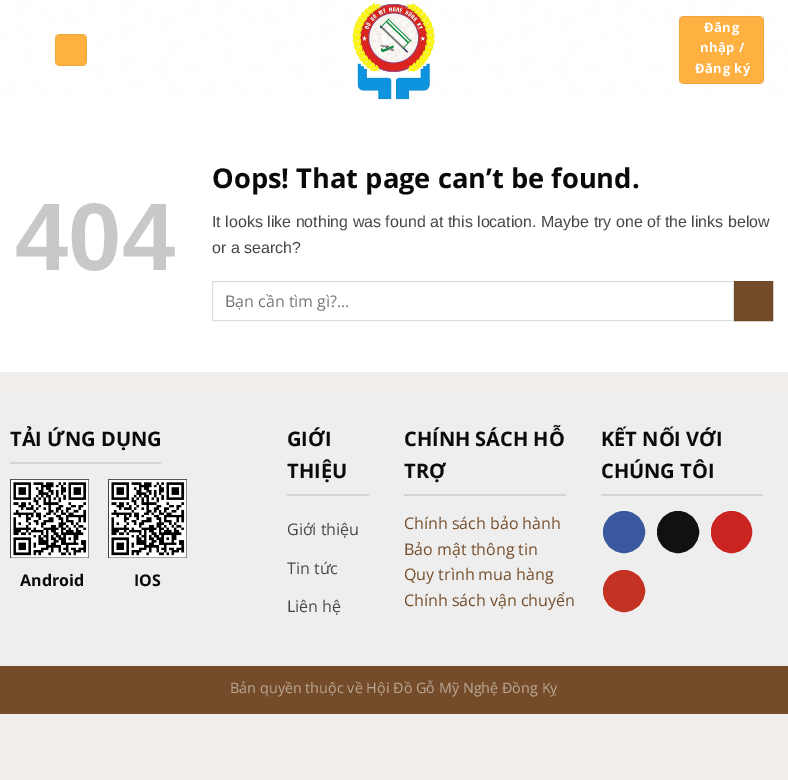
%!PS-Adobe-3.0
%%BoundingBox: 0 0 788 780
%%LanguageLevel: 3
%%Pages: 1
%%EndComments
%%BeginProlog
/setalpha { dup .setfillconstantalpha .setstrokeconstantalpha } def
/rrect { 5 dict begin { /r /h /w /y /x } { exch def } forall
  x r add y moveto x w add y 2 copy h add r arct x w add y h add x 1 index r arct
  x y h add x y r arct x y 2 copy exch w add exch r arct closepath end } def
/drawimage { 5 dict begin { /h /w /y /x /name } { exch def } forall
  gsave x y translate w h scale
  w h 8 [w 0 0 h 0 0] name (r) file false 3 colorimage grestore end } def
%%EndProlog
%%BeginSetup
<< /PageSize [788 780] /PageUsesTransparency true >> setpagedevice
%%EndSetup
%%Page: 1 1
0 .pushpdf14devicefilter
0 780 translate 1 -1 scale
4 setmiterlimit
0.945 0.929 0.918 setrgbcolor
0 0 788 780 rectfill
(images/1.raw) 0 0 788 100 drawimage
0.996 0.69 0.255 setrgbcolor
55 34 32 32 5 rrect fill
0.05 setalpha
0 setgray
55.5 34.5 31 31 rectstroke
1 setalpha
(images/2.raw) 352 2 83 98 drawimage
0.996 0.69 0.255 setrgbcolor
679 16 85 68 5 rrect fill
0.05 setalpha
0 setgray
679.5 16.5 84 67 rectstroke
1 setalpha
1 setgray
0 100 788 272 rectfill
0.867 setgray
212.5 281.5 521 39 rectstroke
0.455 0.298 0.161 setrgbcolor
newpath 734.5 281.5 moveto 772.5 281.5 lineto 772.5 320.5 lineto 734.5 320.5 lineto closepath gsave fill grestore
0.431 0.282 0.153 setrgbcolor
stroke
0.933 setgray
0 393 788 273 rectfill
0.831 setgray
10 462 151 2 rectfill
(images/3.raw) 10 479 79 79 drawimage
(images/3.raw) 108 479 79 79 drawimage
287 494 82 2 rectfill
404 494 162 2 rectfill
601 494 162 2 rectfill
0.227 0.345 0.616 setrgbcolor
newpath 624 532 20.5 0 360 arc closepath gsave fill grestore
stroke
0.067 setgray
newpath 678 532 20.5 0 360 arc closepath gsave fill grestore
stroke
0.796 0.137 0.125 setrgbcolor
711.5 511.5 40 41 20 rrect gsave fill grestore
stroke
0.765 0.196 0.137 setrgbcolor
newpath 624 591 20.5 0 360 arc closepath gsave fill grestore
stroke
0.455 0.298 0.161 setrgbcolor
0 666 788 48 rectfill
/OpenSans-Bold [13 0 0 -13 0 0] selectfont
1 setgray
704 32 moveto 0.5 0 (Đăng) ashow
700 52 moveto 0.5 0 (nhập /) ashow
695 73 moveto 0.5 0 (Đăng ký) ashow
/LiberationSans-Bold [96 0 0 -96 0 0] selectfont
0.784 setgray
15 270 moveto (404) show
/OpenSans-Bold [27.25 0 0 -27.25 0 0] selectfont
0.039 setgray
212 188 moveto (Oops! That page can’t be found.) show
/LiberationSans-Regular [16 0 0 -16 0 0] selectfont
0.278 setgray
212 227 moveto (It looks like nothing was found at this location. Maybe try one of the links below) show
212 253 moveto (or a search?) show
/OpenSans-Regular [16 0 0 -16 0 0] selectfont
0.459 setgray
225 307 moveto (Bạn cần tìm gì?...) show
/OpenSans-Bold [20 0 0 -20 0 0] selectfont
0.039 setgray
10 446 moveto (TẢI ỨNG DỤNG) show
/OpenSans-Bold [16 0 0 -16 0 0] selectfont
20 586 moveto (Android) show
134 586 moveto (IOS) show
/OpenSans-Bold [20 0 0 -20 0 0] selectfont
287 446 moveto (GIỚI) show
287 478 moveto (THIỆU) show
/OpenSans-Regular [16 0 0 -16 0 0] selectfont
0.278 setgray
287 535 moveto (Giới thiệu) show
287 574 moveto (Tin tức) show
287 612 moveto (Liên hệ) show
/OpenSans-Bold [20 0 0 -20 0 0] selectfont
0.039 setgray
404 446 moveto (CHÍNH SÁCH HỖ) show
404 478 moveto (TRỢ) show
/OpenSans-Regular [16 0 0 -16 0 0] selectfont
0.455 0.298 0.161 setrgbcolor
404 529 moveto (Chính sách bảo hành) show
404 555 moveto (Bảo mật thông tin) show
404 580 moveto (Quy trình mua hàng) show
404 606 moveto (Chính sách vận chuyển) show
/OpenSans-Bold [20 0 0 -20 0 0] selectfont
0.039 setgray
601 446 moveto (KẾT NỐI VỚI) show
601 478 moveto (CHÚNG TÔI) show
/OpenSans-Regular [14.4 0 0 -14.4 0 0] selectfont
0.729 0.651 0.58 setrgbcolor
230 693 moveto (Bản quyền thuộc về Hội Đồ Gỗ Mỹ Nghệ Đồng Kỵ) show
.poppdf14devicefilter showpage
%%EOF
